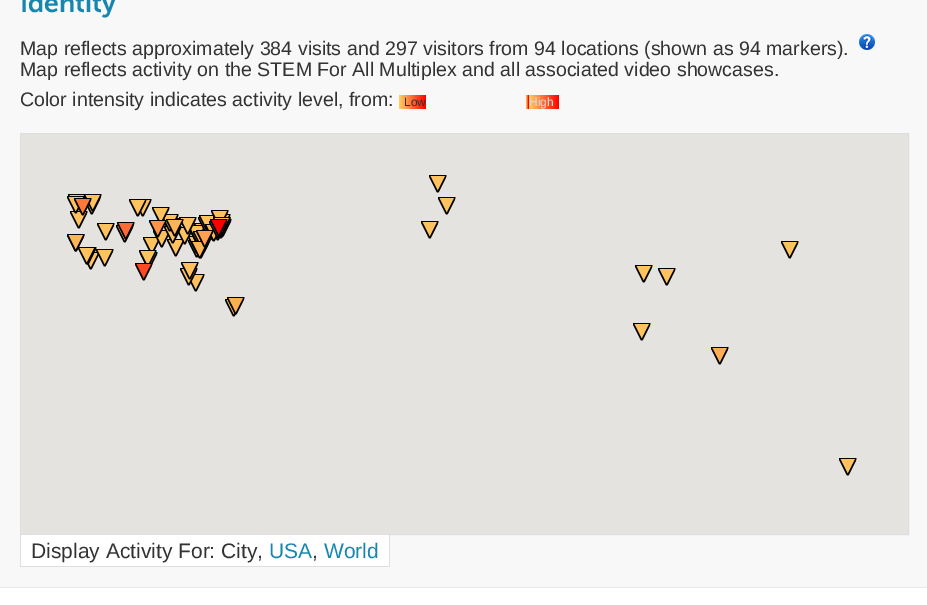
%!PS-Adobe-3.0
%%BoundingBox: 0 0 927 605
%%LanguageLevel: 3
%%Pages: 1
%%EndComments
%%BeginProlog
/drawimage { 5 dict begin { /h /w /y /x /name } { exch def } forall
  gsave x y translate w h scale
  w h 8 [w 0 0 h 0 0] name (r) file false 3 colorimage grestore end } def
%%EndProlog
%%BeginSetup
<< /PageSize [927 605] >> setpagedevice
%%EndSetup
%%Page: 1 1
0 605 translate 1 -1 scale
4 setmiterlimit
0.973 setgray
0 0 927 605 rectfill
0.91 setgray
0 587 927 1 rectfill
(images/1.raw) 859 34 16 16 drawimage
gsave newpath 399 95 moveto 426 95 lineto 426 109 lineto 399 109 lineto closepath clip newpath
<< /ShadingType 2 /ColorSpace /DeviceRGB /Coords [399 102 426 102] /Extend [true true] /Function << /FunctionType 2 /Domain [0 1] /C0 [1 0.816 0.396] /C1 [1 0 0] /N 1 >> >> shfill grestore
gsave newpath 526 95 moveto 529 95 lineto 529 109 lineto 526 109 lineto closepath clip newpath
<< /ShadingType 2 /ColorSpace /DeviceRGB /Coords [526 102 529 102] /Extend [true true] /Function << /FunctionType 2 /Domain [0 1] /C0 [1 0.816 0.396] /C1 [1 0 0] /N 1 >> >> shfill grestore
gsave newpath 529 95 moveto 559 95 lineto 559 109 lineto 529 109 lineto closepath clip newpath
<< /ShadingType 2 /ColorSpace /DeviceRGB /Coords [529 102 559 102] /Extend [true true] /Function << /FunctionType 2 /Domain [0 1] /C0 [1 0.816 0.396] /C1 [1 0 0] /N 1 >> >> shfill grestore
0.871 setgray
20.5 133.5 888 401 rectstroke
0.898 0.89 0.875 setrgbcolor
21 134 887 400 rectfill
(images/2.raw) 67 194 101 87 drawimage
(images/3.raw) 168 207 256 110 drawimage
(images/4.raw) 424 175 252 166 drawimage
(images/5.raw) 711 241 88 124 drawimage
(images/6.raw) 839 458 18 18 drawimage
1 setgray
21 535 368 31 rectfill
0.871 setgray
389 535 1 32 rectfill
20 566 370 1 rectfill
20 535 1 32 rectfill
1 setgray
0 588 927 17 rectfill
/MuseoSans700-SemiBold [26.5 0 0 -26.5 0 0] selectfont
0.086 0.525 0.686 setrgbcolor
20 12 moveto (Identity) show
/LiberationSans-Regular [19.6 0 0 -19.6 0 0] selectfont
0.2 setgray
20 55 moveto (Map reflects approximately 384 visits and 297 visitors from 94 locations \(shown as 94 markers\).) show
20 76 moveto (Map reflects activity on the STEM For All Multiplex and all associated video showcases.) show
20 106 moveto (Color intensity indicates activity level, from:) show
/LiberationSans-Regular [12 0 0 -12 0 0] selectfont
404 106 moveto (Low) show
0.867 setgray
529 106 moveto (High) show
/LiberationSans-Regular [21 0 0 -21 0 0] selectfont
0.2 setgray
31 558 moveto (Display Activity For: City,) show
0.086 0.525 0.686 setrgbcolor
269 558 moveto (USA) show
0.2 setgray
312 558 moveto (,) show
0.086 0.525 0.686 setrgbcolor
324 558 moveto (World) show
showpage
%%EOF
